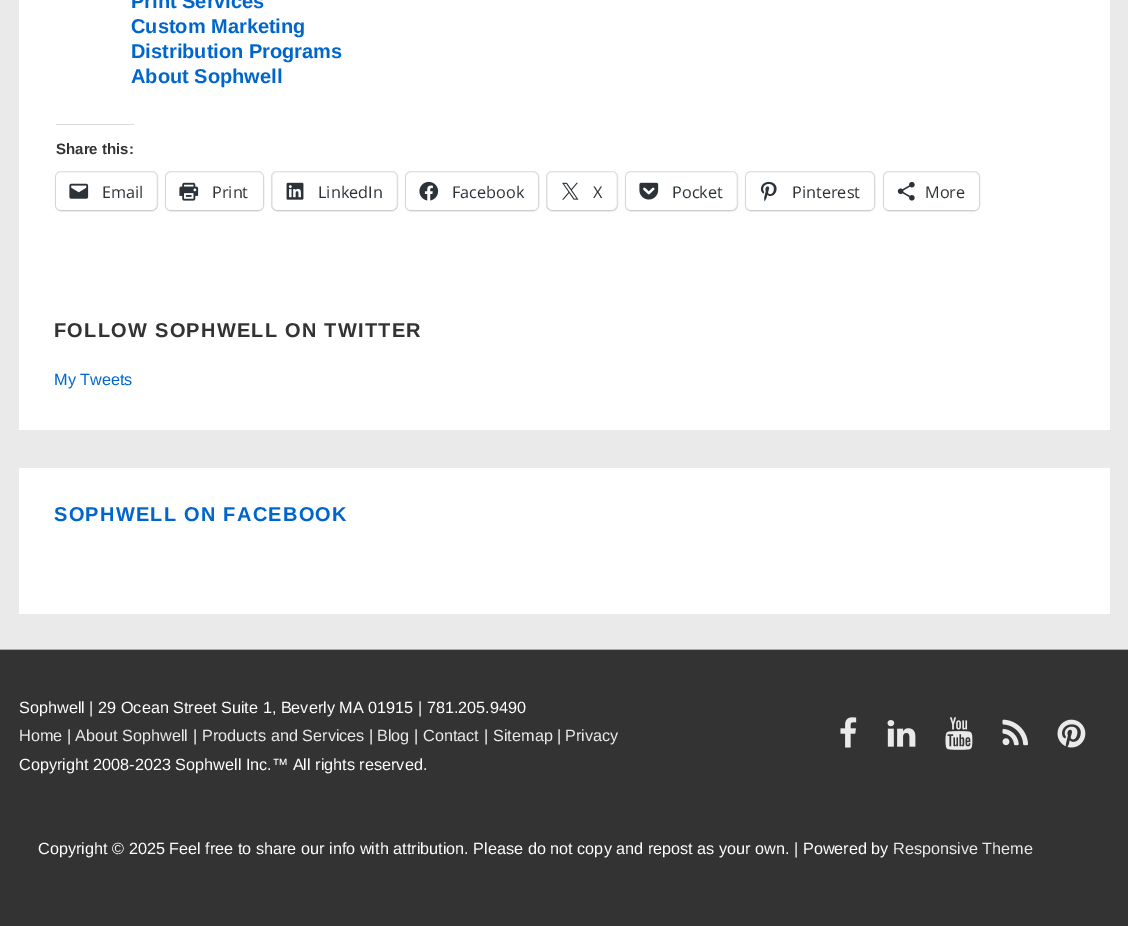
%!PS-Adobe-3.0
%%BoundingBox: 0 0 1128 926
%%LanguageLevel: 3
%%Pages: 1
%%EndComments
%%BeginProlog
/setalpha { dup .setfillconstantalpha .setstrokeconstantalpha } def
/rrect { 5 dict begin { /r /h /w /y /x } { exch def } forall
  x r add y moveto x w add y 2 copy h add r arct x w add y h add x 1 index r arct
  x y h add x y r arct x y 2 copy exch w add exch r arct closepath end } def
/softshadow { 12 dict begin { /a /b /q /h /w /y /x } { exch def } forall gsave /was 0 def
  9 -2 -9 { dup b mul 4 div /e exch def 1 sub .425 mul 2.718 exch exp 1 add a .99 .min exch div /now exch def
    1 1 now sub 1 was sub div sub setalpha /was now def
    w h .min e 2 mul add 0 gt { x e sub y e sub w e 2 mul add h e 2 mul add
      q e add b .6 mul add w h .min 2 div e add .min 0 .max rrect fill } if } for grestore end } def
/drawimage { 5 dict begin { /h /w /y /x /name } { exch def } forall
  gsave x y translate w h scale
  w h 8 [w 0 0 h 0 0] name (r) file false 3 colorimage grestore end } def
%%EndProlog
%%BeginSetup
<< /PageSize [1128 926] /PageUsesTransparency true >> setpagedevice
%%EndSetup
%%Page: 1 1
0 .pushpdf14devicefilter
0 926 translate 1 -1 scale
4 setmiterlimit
0.918 setgray
0 0 1128 926 rectfill
1 setgray
19 0 1091 430 rectfill
0.863 0.863 0.871 setrgbcolor
56 124 78 1 rectfill
0.878 setgray
55.5 171.5 102 39 5.5 rrect stroke
0 setgray
56 174 100 37 5 1 0.12 softshadow
1 setgray
56 173 100 37 5 rrect fill
(images/1.raw) 69 183 20 16 drawimage
0.878 setgray
165.5 171.5 98 39 5.5 rrect stroke
0 setgray
166 174 97 37 5 1 0.12 softshadow
1 setgray
166 173 97 37 5 rrect fill
(images/2.raw) 179 182 20 19 drawimage
0.878 setgray
271.5 171.5 126 39 5.5 rrect stroke
0 setgray
273 174 123 37 5 1 0.12 softshadow
1 setgray
273 173 123 37 5 rrect fill
(images/3.raw) 286 182 18 18 drawimage
0.878 setgray
405.5 171.5 133 39 5.5 rrect stroke
0 setgray
406 174 132 37 5 1 0.12 softshadow
1 setgray
406 173 132 37 5 rrect fill
(images/4.raw) 419 181 20 20 drawimage
0.878 setgray
546.5 171.5 71 39 5.5 rrect stroke
0 setgray
548 174 68 37 5 1 0.12 softshadow
1 setgray
548 173 68 37 5 rrect fill
(images/5.raw) 562 182 17 18 drawimage
0.878 setgray
625.5 171.5 112 39 5.5 rrect stroke
0 setgray
626 174 110 37 5 1 0.12 softshadow
1 setgray
626 173 110 37 5 rrect fill
(images/6.raw) 639 182 20 18 drawimage
0.878 setgray
745.5 171.5 129 39 5.5 rrect stroke
0 setgray
746 174 128 37 5 1 0.12 softshadow
1 setgray
746 173 128 37 5 rrect fill
(images/7.raw) 760 181 17 21 drawimage
0.878 setgray
883.5 171.5 96 39 5.5 rrect stroke
0 setgray
884 174 95 37 5 1 0.12 softshadow
1 setgray
884 173 95 37 5 rrect fill
(images/8.raw) 897 181 18 20 drawimage
19 468 1091 146 rectfill
0.2 setgray
0 650 1128 276 rectfill
0.667 setgray
0 649 1128 1 rectfill
(images/9.raw) 840 717 17 31 drawimage
(images/10.raw) 887 720 29 27 drawimage
(images/11.raw) 945 717 28 33 drawimage
(images/12.raw) 1002 719 26 27 drawimage
(images/13.raw) 1057 719 29 29 drawimage
/LiberationSans-Bold [20 0 0 -20 0 0] selectfont
0 0.4 0.8 setrgbcolor
131 8 moveto (Print Services) show
131 33 moveto (Custom Marketing) show
131 58 moveto (Distribution Programs) show
131 83 moveto (About Sophwell) show
/LiberationSans-Bold [15 0 0 -15 0 0] selectfont
0.2 setgray
56 154 moveto (Share this:) show
/OpenSans-Regular [16.25 0 0 -16.25 0 0] selectfont
0.173 0.2 0.22 setrgbcolor
102 198 moveto (Email) show
212 198 moveto (Print) show
318 198 moveto (LinkedIn) show
452 198 moveto (Facebook) show
593 198 moveto (X) show
672 198 moveto (Pocket) show
792 198 moveto (Pinterest) show
925 198 moveto (More) show
/LiberationSans-Bold [20 0 0 -20 0 0] selectfont
0.2 setgray
54 337 moveto 1.25 0 (FOLLOW SOPHWELL ON TWITTER) ashow
/LiberationSans-Regular [16.25 0 0 -16.25 0 0] selectfont
0 0.4 0.8 setrgbcolor
54 385 moveto (My Tweets) show
/LiberationSans-Bold [20 0 0 -20 0 0] selectfont
54 521 moveto 1.25 0 (SOPHWELL ON FACEBOOK) ashow
/LiberationSans-Regular [16.25 0 0 -16.25 0 0] selectfont
1 setgray
19 713 moveto (Sophwell | 29 Ocean Street Suite 1, Beverly MA 01915 | 781.205.9490) show
0.918 setgray
19 741 moveto (Home) show
1 setgray
67 741 moveto (|) show
0.918 setgray
75 741 moveto (About Sophwell) show
1 setgray
193 741 moveto (|) show
0.918 setgray
202 741 moveto (Products and Services) show
1 setgray
369 741 moveto (|) show
0.918 setgray
377 741 moveto (Blog) show
1 setgray
414 741 moveto (|) show
0.918 setgray
423 741 moveto (Contact) show
1 setgray
484 741 moveto (|) show
0.918 setgray
493 741 moveto (Sitemap) show
1 setgray
557 741 moveto (|) show
0.918 setgray
565 741 moveto (Privacy) show
1 setgray
19 770 moveto (Copyright 2008-2023 Sophwell Inc.™ All rights reserved.) show
38 854 moveto (Copyright © 2025 Feel free to share our info with attribution. Please do not copy and repost as your own. | Powered by) show
0.918 setgray
893 854 moveto (Responsive Theme) show
.poppdf14devicefilter showpage
%%EOF
